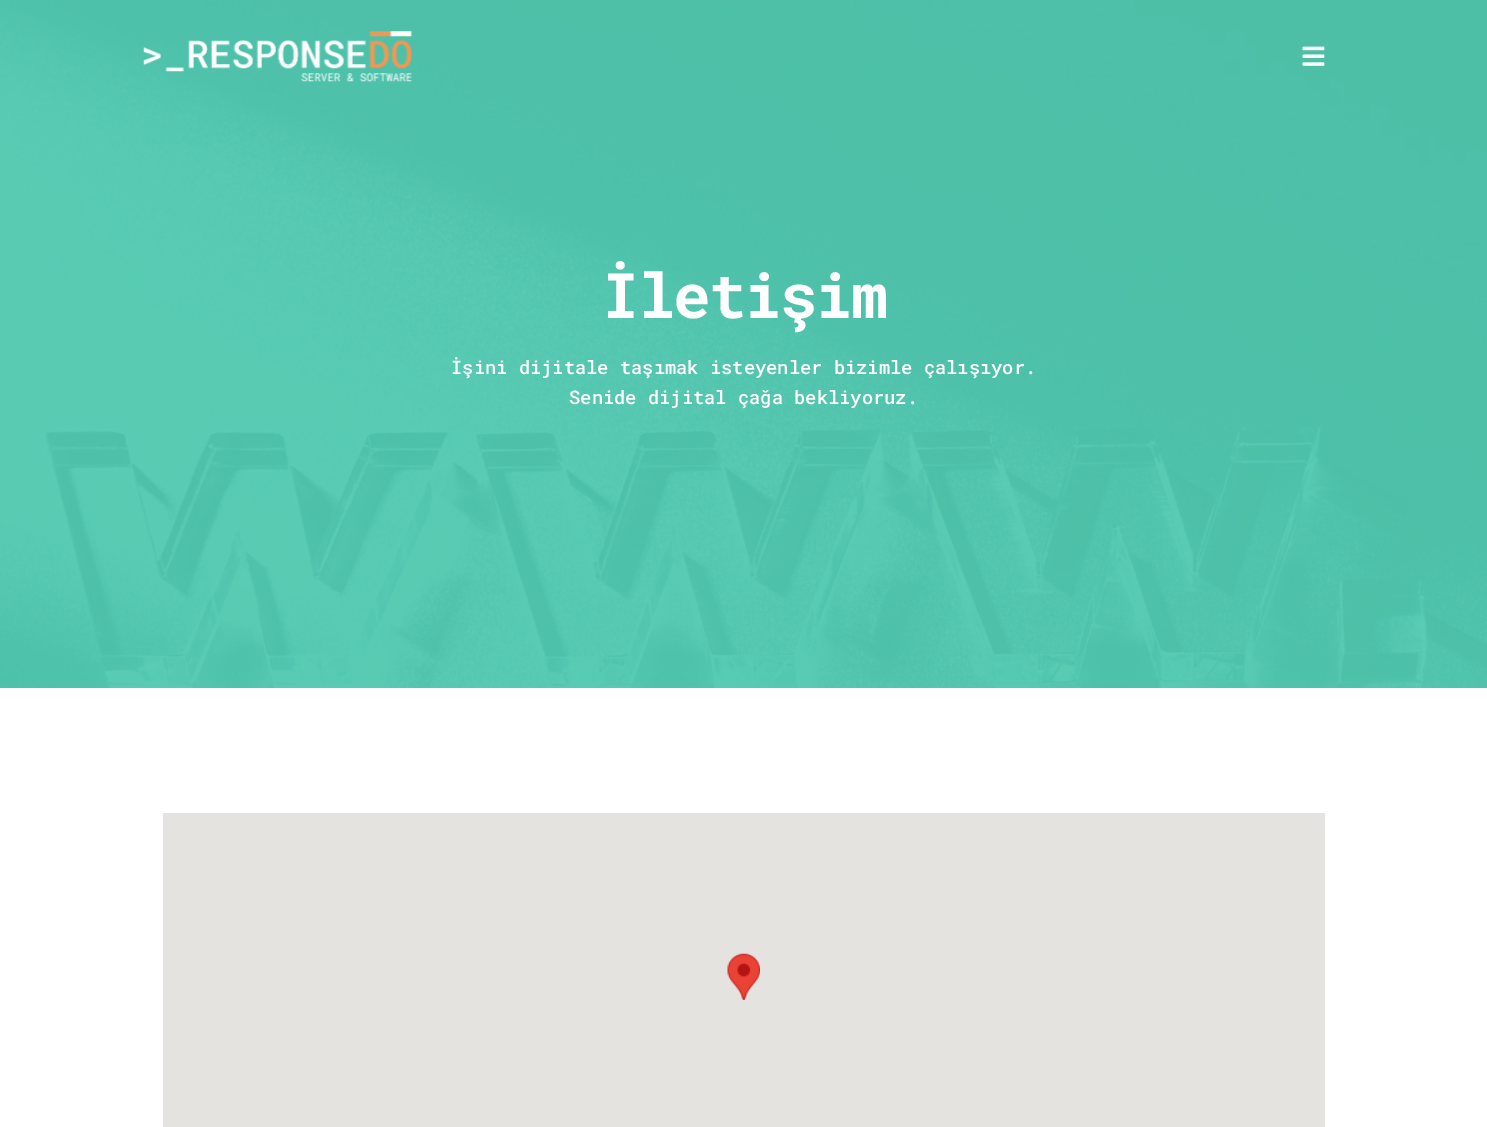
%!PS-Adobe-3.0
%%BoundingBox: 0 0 1487 1127
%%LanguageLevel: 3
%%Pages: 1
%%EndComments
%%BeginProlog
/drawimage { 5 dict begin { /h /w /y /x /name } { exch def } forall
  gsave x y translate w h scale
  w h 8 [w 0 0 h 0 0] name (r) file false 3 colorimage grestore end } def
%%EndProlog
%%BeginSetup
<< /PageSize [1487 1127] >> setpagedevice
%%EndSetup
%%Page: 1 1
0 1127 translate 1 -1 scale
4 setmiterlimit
1 setgray
0 0 1487 1127 rectfill
(images/3.raw) 0 0 1487 688 drawimage
(images/1.raw) 143 31 269 51 drawimage
(images/2.raw) 1302 46 23 20 drawimage
0.898 0.89 0.875 setrgbcolor
163 813 1162 314 rectfill
(images/4.raw) 727 953 33 47 drawimage
/RobotoMono-Bold [62.5 0 0 -62.5 0 0] selectfont
1 setgray
602 318 moveto -2 0 (İletişim) ashow
/RobotoMono-Medium [18.75 0 0 -18.75 0 0] selectfont
451 374 moveto (İşini dijitale taşımak isteyenler bizimle çalışıyor.) show
569 404 moveto (Senide dijital çağa bekliyoruz.) show
showpage
%%EOF
